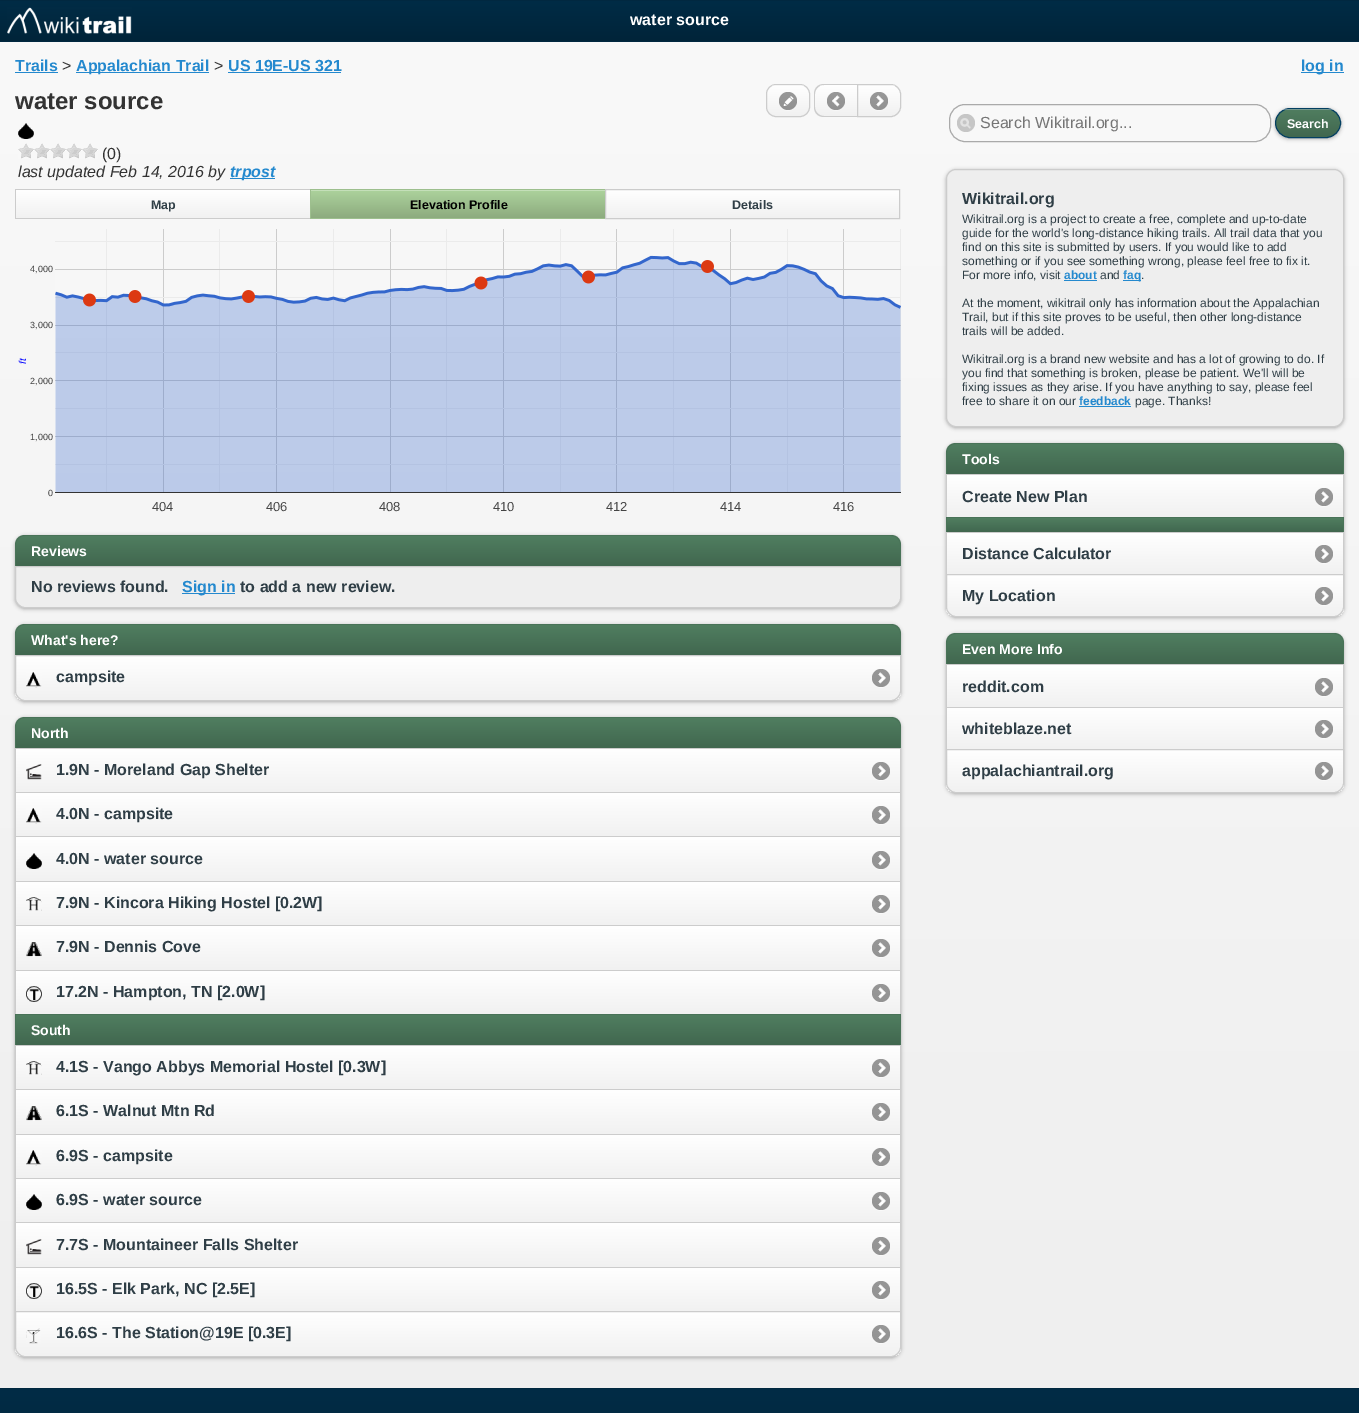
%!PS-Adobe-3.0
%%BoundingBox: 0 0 1359 1413
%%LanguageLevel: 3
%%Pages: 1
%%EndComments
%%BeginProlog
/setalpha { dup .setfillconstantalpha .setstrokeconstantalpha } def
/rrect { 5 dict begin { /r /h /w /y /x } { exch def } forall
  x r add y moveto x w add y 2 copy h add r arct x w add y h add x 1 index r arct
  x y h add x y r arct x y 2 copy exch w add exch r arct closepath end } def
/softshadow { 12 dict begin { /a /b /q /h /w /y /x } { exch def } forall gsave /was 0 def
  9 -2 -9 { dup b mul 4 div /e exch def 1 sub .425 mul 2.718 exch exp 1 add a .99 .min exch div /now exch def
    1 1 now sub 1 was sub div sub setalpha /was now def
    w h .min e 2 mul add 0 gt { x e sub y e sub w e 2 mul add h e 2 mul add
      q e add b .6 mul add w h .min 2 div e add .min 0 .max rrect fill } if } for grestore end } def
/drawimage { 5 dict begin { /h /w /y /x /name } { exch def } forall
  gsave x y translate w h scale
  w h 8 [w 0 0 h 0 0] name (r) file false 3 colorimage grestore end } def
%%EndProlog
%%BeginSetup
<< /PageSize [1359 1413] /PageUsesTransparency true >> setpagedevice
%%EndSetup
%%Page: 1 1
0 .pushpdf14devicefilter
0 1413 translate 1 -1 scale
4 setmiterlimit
1 setgray
0 0 1359 1413 rectfill
gsave newpath 0 42 moveto 1359 42 lineto 1359 1388 lineto 0 1388 lineto closepath clip newpath
<< /ShadingType 2 /ColorSpace /DeviceRGB /Coords [679 0 680 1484] /Extend [true true] /Function << /FunctionType 2 /Domain [0 1] /C0 [0.976 0.976 0.976] /C1 [0.933 0.933 0.933] /N 1 >> >> shfill grestore
gsave newpath 0 1 moveto 1359 1 lineto 1359 41 lineto 0 41 lineto closepath clip newpath
<< /ShadingType 2 /ColorSpace /DeviceRGB /Coords [680 1 680 41] /Extend [true true] /Function << /FunctionType 2 /Domain [0 1] /C0 [0.004 0.173 0.275] /C1 [0 0.141 0.224] /N 1 >> >> shfill grestore
0.004 0.157 0.251 setrgbcolor
0 0 1359 1 rectfill
0 41 1359 1 rectfill
(images/1.raw) 7 7 125 27 drawimage
0.141 0.537 0.808 setrgbcolor
15 72 43 1 rectfill
76 72 133 1 rectfill
228 72 113 1 rectfill
gsave 767 85 42 31 9 rrect clip newpath
<< /ShadingType 2 /ColorSpace /DeviceRGB /Coords [788 85 788 116] /Extend [true true] /Function << /FunctionType 2 /Domain [0 1] /C0 [1 1 1] /C1 [0.945 0.945 0.945] /N 1 >> >> shfill grestore
0.8 setgray
766.5 84.5 43 32 9.5 rrect stroke
0.3 setalpha
1 setgray
772 85 32 1 rectfill
1 setalpha
0.973 setgray
newpath 797 101.5 moveto 796.5 112.5 779.5 112.5 779 101.5 curveto 778.5 114 797.5 114 797 101.5 curveto closepath fill
0.4 setalpha
0 setgray
newpath 788 101 9 0 360 arc closepath fill
1 setalpha
(images/2.raw) 783 96 11 10 drawimage
gsave newpath 824 85 moveto 857 85 lineto 857 116 lineto 824 116 lineto 819 116 815 112 815 107 curveto 815 94 lineto 815 89 819 85 824 85 curveto closepath clip newpath
<< /ShadingType 2 /ColorSpace /DeviceRGB /Coords [836 85 836 116] /Extend [true true] /Function << /FunctionType 2 /Domain [0 1] /C0 [1 1 1] /C1 [0.945 0.945 0.945] /N 1 >> >> shfill grestore
0.8 setgray
newpath 824 84 moveto 857 84 lineto 857 117 lineto 824 117 lineto 818 117 814 113 814 107 curveto 814 94 lineto 814 88 818 84 824 84 curveto closepath 824 85 moveto 857 85 lineto 857 116 lineto 824 116 lineto 819 116 815 112 815 107 curveto 815 94 lineto 815 89 819 85 824 85 curveto closepath eofill
0.3 setalpha
1 setgray
820 85 3 1 rectfill
1 setalpha
0.973 setgray
newpath 845 101.5 moveto 844.5 112.5 827.5 112.5 827 101.5 curveto 826.5 114 845.5 114 845 101.5 curveto closepath fill
0.4 setalpha
0 setgray
newpath 836 101 9 0 360 arc closepath fill
1 setalpha
(images/3.raw) 832 95 8 12 drawimage
gsave newpath 858 85 moveto 891 85 lineto 896 85 900 89 900 94 curveto 900 107 lineto 900 112 896 116 891 116 curveto 858 116 lineto closepath clip newpath
<< /ShadingType 2 /ColorSpace /DeviceRGB /Coords [879 85 879 116] /Extend [true true] /Function << /FunctionType 2 /Domain [0 1] /C0 [1 1 1] /C1 [0.945 0.945 0.945] /N 1 >> >> shfill grestore
0.8 setgray
newpath 857.5 84.5 moveto 891 84.5 lineto 896 84.5 900.5 89 900.5 94 curveto 900.5 107 lineto 900.5 112 896 116.5 891 116.5 curveto 857.5 116.5 lineto closepath stroke
0.3 setalpha
1 setgray
892 85 3 1 rectfill
1 setalpha
0.973 setgray
newpath 888 101.5 moveto 887.5 112.5 870.5 112.5 870 101.5 curveto 869.5 114 888.5 114 888 101.5 curveto closepath fill
0.4 setalpha
0 setgray
newpath 879 101 9 0 360 arc closepath fill
1 setalpha
(images/4.raw) 876 95 8 12 drawimage
(images/5.raw) 18 123 16 16 drawimage
(images/6.raw) 18 143 80 16 drawimage
0.141 0.537 0.808 setrgbcolor
230 178 45 1 rectfill
gsave newpath 16 190 moveto 310 190 lineto 310 218 lineto 16 218 lineto closepath clip newpath
<< /ShadingType 2 /ColorSpace /DeviceRGB /Coords [164 190 164 218] /Extend [true true] /Function << /FunctionType 2 /Domain [0 1] /C0 [1 1 1] /C1 [0.945 0.945 0.945] /N 1 >> >> shfill grestore
0.8 setgray
15 189 296 1 rectfill
15 218 296 1 rectfill
15 189 1 30 rectfill
gsave newpath 311 191 moveto 605 191 lineto 605 218 lineto 311 218 lineto closepath clip newpath
<< /ShadingType 2 /ColorSpace /DeviceRGB /Coords [459 190 459 218] /Extend [true true] /Function << /FunctionType 2 /Domain [0 1] /C0 [0.675 0.824 0.612] /C1 [0.553 0.671 0.498] /N 1 >> >> shfill grestore
0.616 0.749 0.557 setrgbcolor
310 189 296 1 rectfill
310 218 296 1 rectfill
310 189 1 30 rectfill
0.769 0.875 0.725 setrgbcolor
311 190 295 1 rectfill
gsave newpath 606 190 moveto 899 190 lineto 899 218 lineto 606 218 lineto closepath clip newpath
<< /ShadingType 2 /ColorSpace /DeviceRGB /Coords [753 190 753 218] /Extend [true true] /Function << /FunctionType 2 /Domain [0 1] /C0 [1 1 1] /C1 [0.945 0.945 0.945] /N 1 >> >> shfill grestore
0.8 setgray
605.5 189.5 294 29 rectstroke
(images/7.raw) 55 229 846 264 drawimage
0 setgray
15 536 886 73 10 2 0.3 softshadow
gsave newpath 25 536 moveto 891 536 lineto 896 536 900 540 900 545 curveto 900 566 lineto 16 566 lineto 16 545 lineto 16 540 20 536 25 536 curveto closepath clip newpath
<< /ShadingType 2 /ColorSpace /DeviceRGB /Coords [458 536 458 566] /Extend [true true] /Function << /FunctionType 2 /Domain [0 1] /C0 [0.314 0.494 0.376] /C1 [0.255 0.404 0.31] /N 1 >> >> shfill grestore
0.286 0.451 0.345 setrgbcolor
newpath 25 535 moveto 891 535 lineto 897 535 901 539 901 545 curveto 901 566 lineto 15 566 lineto 15 545 lineto 15 539 19 535 25 535 curveto closepath 25 536 moveto 891 536 lineto 896 536 900 540 900 545 curveto 900 566 lineto 16 566 lineto 16 545 lineto 16 540 20 536 25 536 curveto closepath eofill
0.933 setgray
newpath 15.5 566.5 moveto 900.5 566.5 lineto 900.5 598 lineto 900.5 603 896 607.5 891 607.5 curveto 25 607.5 lineto 20 607.5 15.5 603 15.5 598 curveto closepath gsave fill grestore
0.8 setgray
stroke
0.141 0.537 0.808 setrgbcolor
182 593 53 1 rectfill
0 setgray
15 625 886 77 10 2 0.3 softshadow
gsave newpath 25 625 moveto 891 625 lineto 896 625 900 629 900 634 curveto 900 655 lineto 16 655 lineto 16 634 lineto 16 629 20 625 25 625 curveto closepath clip newpath
<< /ShadingType 2 /ColorSpace /DeviceRGB /Coords [458 625 458 655] /Extend [true true] /Function << /FunctionType 2 /Domain [0 1] /C0 [0.314 0.494 0.376] /C1 [0.255 0.404 0.31] /N 1 >> >> shfill grestore
0.286 0.451 0.345 setrgbcolor
newpath 25 624 moveto 891 624 lineto 897 624 901 628 901 634 curveto 901 655 lineto 15 655 lineto 15 634 lineto 15 628 19 624 25 624 curveto closepath 25 625 moveto 891 625 lineto 896 625 900 629 900 634 curveto 900 655 lineto 16 655 lineto 16 634 lineto 16 629 20 625 25 625 curveto closepath eofill
gsave
newpath 15 655 moveto 901 655 lineto 901 691 lineto 901 696.5 896.5 701 891 701 curveto 25 701 lineto 19.5 701 15 696.5 15 691 curveto closepath clip newpath
gsave newpath 15 656 moveto 901 656 lineto 901 700 lineto 15 700 lineto closepath clip newpath
<< /ShadingType 2 /ColorSpace /DeviceRGB /Coords [458 656 458 700] /Extend [true true] /Function << /FunctionType 2 /Domain [0 1] /C0 [1 1 1] /C1 [0.945 0.945 0.945] /N 1 >> >> shfill grestore
grestore
0.8 setgray
newpath 15.5 655.5 moveto 900.5 655.5 lineto 900.5 691 lineto 900.5 696 896 700.5 891 700.5 curveto 25 700.5 lineto 20 700.5 15.5 696 15.5 691 curveto closepath stroke
(images/8.raw) 26 672 16 16 drawimage
0.976 setgray
newpath 872 678.5 moveto 871.5 691 890.5 691 890 678.5 curveto 889.5 689.5 872.5 689.5 872 678.5 curveto closepath fill
0.4 setalpha
0 setgray
newpath 881 678 9 0 360 arc closepath fill
1 setalpha
(images/9.raw) 878 672 8 12 drawimage
15 718 886 640 10 2 0.3 softshadow
gsave newpath 25 718 moveto 891 718 lineto 896 718 900 722 900 727 curveto 900 748 lineto 16 748 lineto 16 727 lineto 16 722 20 718 25 718 curveto closepath clip newpath
<< /ShadingType 2 /ColorSpace /DeviceRGB /Coords [458 718 458 748] /Extend [true true] /Function << /FunctionType 2 /Domain [0 1] /C0 [0.314 0.494 0.376] /C1 [0.255 0.404 0.31] /N 1 >> >> shfill grestore
0.286 0.451 0.345 setrgbcolor
newpath 25 717 moveto 891 717 lineto 897 717 901 721 901 727 curveto 901 748 lineto 15 748 lineto 15 727 lineto 15 721 19 717 25 717 curveto closepath 25 718 moveto 891 718 lineto 896 718 900 722 900 727 curveto 900 748 lineto 16 748 lineto 16 727 lineto 16 722 20 718 25 718 curveto closepath eofill
gsave newpath 16 749 moveto 900 749 lineto 900 792 lineto 16 792 lineto closepath clip newpath
<< /ShadingType 2 /ColorSpace /DeviceRGB /Coords [458 749 458 792] /Extend [true true] /Function << /FunctionType 2 /Domain [0 1] /C0 [1 1 1] /C1 [0.945 0.945 0.945] /N 1 >> >> shfill grestore
0.8 setgray
15 748 886 1 rectfill
900 748 1 44 rectfill
15 748 1 44 rectfill
(images/10.raw) 26 764 16 16 drawimage
0.976 setgray
newpath 872 771.5 moveto 871.5 784 890.5 784 890 771.5 curveto 889.5 782.5 872.5 782.5 872 771.5 curveto closepath fill
0.4 setalpha
0 setgray
newpath 881 771 9 0 360 arc closepath fill
1 setalpha
(images/11.raw) 878 765 8 12 drawimage
gsave newpath 16 793 moveto 900 793 lineto 900 836 lineto 16 836 lineto closepath clip newpath
<< /ShadingType 2 /ColorSpace /DeviceRGB /Coords [458 793 458 836] /Extend [true true] /Function << /FunctionType 2 /Domain [0 1] /C0 [1 1 1] /C1 [0.945 0.945 0.945] /N 1 >> >> shfill grestore
0.8 setgray
15 792 886 1 rectfill
900 792 1 44 rectfill
15 792 1 44 rectfill
(images/12.raw) 26 808 16 16 drawimage
0.976 setgray
newpath 872 815.5 moveto 871.5 828 890.5 828 890 815.5 curveto 889.5 826.5 872.5 826.5 872 815.5 curveto closepath fill
0.4 setalpha
0 setgray
newpath 881 815 9 0 360 arc closepath fill
1 setalpha
(images/11.raw) 878 809 8 12 drawimage
gsave newpath 16 837 moveto 900 837 lineto 900 881 lineto 16 881 lineto closepath clip newpath
<< /ShadingType 2 /ColorSpace /DeviceRGB /Coords [458 837 458 881] /Extend [true true] /Function << /FunctionType 2 /Domain [0 1] /C0 [1 1 1] /C1 [0.945 0.945 0.945] /N 1 >> >> shfill grestore
0.8 setgray
15 836 886 1 rectfill
900 836 1 45 rectfill
15 836 1 45 rectfill
(images/13.raw) 26 853 16 16 drawimage
0.976 setgray
newpath 872 860.5 moveto 871.5 873 890.5 873 890 860.5 curveto 889.5 871.5 872.5 871.5 872 860.5 curveto closepath fill
0.4 setalpha
0 setgray
newpath 881 860 9 0 360 arc closepath fill
1 setalpha
(images/14.raw) 878 854 8 12 drawimage
gsave newpath 16 882 moveto 900 882 lineto 900 925 lineto 16 925 lineto closepath clip newpath
<< /ShadingType 2 /ColorSpace /DeviceRGB /Coords [458 882 458 925] /Extend [true true] /Function << /FunctionType 2 /Domain [0 1] /C0 [1 1 1] /C1 [0.945 0.945 0.945] /N 1 >> >> shfill grestore
0.8 setgray
15 881 886 1 rectfill
900 881 1 44 rectfill
15 881 1 44 rectfill
(images/15.raw) 26 897 16 14 drawimage
0.976 setgray
newpath 872 904.5 moveto 871.5 917 890.5 917 890 904.5 curveto 889.5 915.5 872.5 915.5 872 904.5 curveto closepath fill
0.4 setalpha
0 setgray
newpath 881 904 9 0 360 arc closepath fill
1 setalpha
(images/11.raw) 878 898 8 12 drawimage
gsave newpath 16 926 moveto 900 926 lineto 900 970 lineto 16 970 lineto closepath clip newpath
<< /ShadingType 2 /ColorSpace /DeviceRGB /Coords [458 926 458 970] /Extend [true true] /Function << /FunctionType 2 /Domain [0 1] /C0 [1 1 1] /C1 [0.945 0.945 0.945] /N 1 >> >> shfill grestore
0.8 setgray
15 925 886 1 rectfill
900 925 1 45 rectfill
15 925 1 45 rectfill
(images/16.raw) 26 942 16 15 drawimage
0.976 setgray
newpath 872 948.5 moveto 871.5 961 890.5 961 890 948.5 curveto 889.5 959.5 872.5 959.5 872 948.5 curveto closepath fill
0.4 setalpha
0 setgray
newpath 881 948 9 0 360 arc closepath fill
1 setalpha
(images/9.raw) 878 942 8 12 drawimage
gsave newpath 16 971 moveto 900 971 lineto 900 1014 lineto 16 1014 lineto closepath clip newpath
<< /ShadingType 2 /ColorSpace /DeviceRGB /Coords [458 971 458 1014] /Extend [true true] /Function << /FunctionType 2 /Domain [0 1] /C0 [1 1 1] /C1 [0.945 0.945 0.945] /N 1 >> >> shfill grestore
0.8 setgray
15 970 886 1 rectfill
900 970 1 44 rectfill
15 970 1 44 rectfill
(images/17.raw) 26 986 16 16 drawimage
0.976 setgray
newpath 872 993.5 moveto 871.5 1006 890.5 1006 890 993.5 curveto 889.5 1004.5 872.5 1004.5 872 993.5 curveto closepath fill
0.4 setalpha
0 setgray
newpath 881 993 9 0 360 arc closepath fill
1 setalpha
(images/11.raw) 878 987 8 12 drawimage
gsave newpath 16 1015 moveto 900 1015 lineto 900 1045 lineto 16 1045 lineto closepath clip newpath
<< /ShadingType 2 /ColorSpace /DeviceRGB /Coords [458 1015 458 1045] /Extend [true true] /Function << /FunctionType 2 /Domain [0 1] /C0 [0.314 0.494 0.376] /C1 [0.255 0.404 0.31] /N 1 >> >> shfill grestore
0.286 0.451 0.345 setrgbcolor
15 1014 886 1 rectfill
900 1014 1 31 rectfill
15 1014 1 31 rectfill
gsave newpath 16 1046 moveto 900 1046 lineto 900 1089 lineto 16 1089 lineto closepath clip newpath
<< /ShadingType 2 /ColorSpace /DeviceRGB /Coords [458 1046 458 1089] /Extend [true true] /Function << /FunctionType 2 /Domain [0 1] /C0 [1 1 1] /C1 [0.945 0.945 0.945] /N 1 >> >> shfill grestore
0.8 setgray
15 1045 886 1 rectfill
900 1045 1 44 rectfill
15 1045 1 44 rectfill
(images/15.raw) 26 1061 16 14 drawimage
0.976 setgray
newpath 872 1068.5 moveto 871.5 1081 890.5 1081 890 1068.5 curveto 889.5 1079.5 872.5 1079.5 872 1068.5 curveto closepath fill
0.4 setalpha
0 setgray
newpath 881 1068 9 0 360 arc closepath fill
1 setalpha
(images/11.raw) 878 1062 8 12 drawimage
gsave newpath 16 1090 moveto 900 1090 lineto 900 1134 lineto 16 1134 lineto closepath clip newpath
<< /ShadingType 2 /ColorSpace /DeviceRGB /Coords [458 1090 458 1134] /Extend [true true] /Function << /FunctionType 2 /Domain [0 1] /C0 [1 1 1] /C1 [0.945 0.945 0.945] /N 1 >> >> shfill grestore
0.8 setgray
15 1089 886 1 rectfill
900 1089 1 45 rectfill
15 1089 1 45 rectfill
(images/16.raw) 26 1106 16 15 drawimage
0.976 setgray
newpath 872 1112.5 moveto 871.5 1125 890.5 1125 890 1112.5 curveto 889.5 1123.5 872.5 1123.5 872 1112.5 curveto closepath fill
0.4 setalpha
0 setgray
newpath 881 1112 9 0 360 arc closepath fill
1 setalpha
(images/9.raw) 878 1106 8 12 drawimage
gsave newpath 16 1135 moveto 900 1135 lineto 900 1178 lineto 16 1178 lineto closepath clip newpath
<< /ShadingType 2 /ColorSpace /DeviceRGB /Coords [458 1135 458 1178] /Extend [true true] /Function << /FunctionType 2 /Domain [0 1] /C0 [1 1 1] /C1 [0.945 0.945 0.945] /N 1 >> >> shfill grestore
0.8 setgray
15 1134 886 1 rectfill
900 1134 1 44 rectfill
15 1134 1 44 rectfill
(images/12.raw) 26 1150 16 16 drawimage
0.976 setgray
newpath 872 1157.5 moveto 871.5 1170 890.5 1170 890 1157.5 curveto 889.5 1168.5 872.5 1168.5 872 1157.5 curveto closepath fill
0.4 setalpha
0 setgray
newpath 881 1157 9 0 360 arc closepath fill
1 setalpha
(images/11.raw) 878 1151 8 12 drawimage
gsave newpath 16 1179 moveto 900 1179 lineto 900 1222 lineto 16 1222 lineto closepath clip newpath
<< /ShadingType 2 /ColorSpace /DeviceRGB /Coords [458 1179 458 1222] /Extend [true true] /Function << /FunctionType 2 /Domain [0 1] /C0 [1 1 1] /C1 [0.945 0.945 0.945] /N 1 >> >> shfill grestore
0.8 setgray
15 1178 886 1 rectfill
900 1178 1 44 rectfill
15 1178 1 44 rectfill
(images/18.raw) 26 1194 16 16 drawimage
0.976 setgray
newpath 872 1201.5 moveto 871.5 1214 890.5 1214 890 1201.5 curveto 889.5 1212.5 872.5 1212.5 872 1201.5 curveto closepath fill
0.4 setalpha
0 setgray
newpath 881 1201 9 0 360 arc closepath fill
1 setalpha
(images/11.raw) 878 1195 8 12 drawimage
gsave newpath 16 1223 moveto 900 1223 lineto 900 1267 lineto 16 1267 lineto closepath clip newpath
<< /ShadingType 2 /ColorSpace /DeviceRGB /Coords [458 1223 458 1267] /Extend [true true] /Function << /FunctionType 2 /Domain [0 1] /C0 [1 1 1] /C1 [0.945 0.945 0.945] /N 1 >> >> shfill grestore
0.8 setgray
15 1222 886 1 rectfill
900 1222 1 45 rectfill
15 1222 1 45 rectfill
(images/19.raw) 26 1239 16 16 drawimage
0.976 setgray
newpath 872 1246.5 moveto 871.5 1259 890.5 1259 890 1246.5 curveto 889.5 1257.5 872.5 1257.5 872 1246.5 curveto closepath fill
0.4 setalpha
0 setgray
newpath 881 1246 9 0 360 arc closepath fill
1 setalpha
(images/14.raw) 878 1240 8 12 drawimage
gsave newpath 16 1268 moveto 900 1268 lineto 900 1311 lineto 16 1311 lineto closepath clip newpath
<< /ShadingType 2 /ColorSpace /DeviceRGB /Coords [458 1268 458 1311] /Extend [true true] /Function << /FunctionType 2 /Domain [0 1] /C0 [1 1 1] /C1 [0.945 0.945 0.945] /N 1 >> >> shfill grestore
0.8 setgray
15 1267 886 1 rectfill
900 1267 1 44 rectfill
15 1267 1 44 rectfill
(images/17.raw) 26 1283 16 16 drawimage
0.976 setgray
newpath 872 1290.5 moveto 871.5 1303 890.5 1303 890 1290.5 curveto 889.5 1301.5 872.5 1301.5 872 1290.5 curveto closepath fill
0.4 setalpha
0 setgray
newpath 881 1290 9 0 360 arc closepath fill
1 setalpha
(images/11.raw) 878 1284 8 12 drawimage
gsave
newpath 15 1311 moveto 901 1311 lineto 901 1347 lineto 901 1352.5 896.5 1357 891 1357 curveto 25 1357 lineto 19.5 1357 15 1352.5 15 1347 curveto closepath clip newpath
gsave newpath 15 1312 moveto 901 1312 lineto 901 1356 lineto 15 1356 lineto closepath clip newpath
<< /ShadingType 2 /ColorSpace /DeviceRGB /Coords [458 1312 458 1356] /Extend [true true] /Function << /FunctionType 2 /Domain [0 1] /C0 [1 1 1] /C1 [0.945 0.945 0.945] /N 1 >> >> shfill grestore
grestore
0.8 setgray
newpath 15.5 1311.5 moveto 900.5 1311.5 lineto 900.5 1347 lineto 900.5 1352 896 1356.5 891 1356.5 curveto 25 1356.5 lineto 20 1356.5 15.5 1352 15.5 1347 curveto closepath stroke
(images/20.raw) 26 1328 15 16 drawimage
0.976 setgray
newpath 872 1334.5 moveto 871.5 1347 890.5 1347 890 1334.5 curveto 889.5 1345.5 872.5 1345.5 872 1334.5 curveto closepath fill
0.4 setalpha
0 setgray
newpath 881 1334 9 0 360 arc closepath fill
1 setalpha
(images/9.raw) 878 1328 8 12 drawimage
0.141 0.537 0.808 setrgbcolor
1301 72 43 1 rectfill
0.667 setgray
949.5 104.5 321 37 15.5 rrect stroke
0.776 setgray
newpath 966 123 9 0 360 arc closepath fill
(images/21.raw) 960 118 11 11 drawimage
0 setgray
1275 109 66 30 15 2 0.3 softshadow
gsave 1276 109 64 28 14 rrect clip newpath
<< /ShadingType 2 /ColorSpace /DeviceRGB /Coords [1308 109 1308 137] /Extend [true true] /Function << /FunctionType 2 /Domain [0 1] /C0 [0.314 0.494 0.376] /C1 [0.255 0.404 0.31] /N 1 >> >> shfill grestore
0.016 0.251 0.384 setrgbcolor
1275.5 108.5 65 29 14.5 rrect stroke
0.3 setalpha
1 setgray
1283 109 50 1 rectfill
1 setalpha
0 setgray
946 170 398 258 10 2 0.3 softshadow
0.933 setgray
946.5 169.5 397 257 9.5 rrect gsave fill grestore
0.8 setgray
stroke
0.141 0.537 0.808 setrgbcolor
1064 280 33 1 rectfill
1123 280 18 1 rectfill
1079 406 52 1 rectfill
0 setgray
946 444 398 174 10 2 0.3 softshadow
gsave newpath 956 444 moveto 1334 444 lineto 1339 444 1343 448 1343 453 curveto 1343 474 lineto 947 474 lineto 947 453 lineto 947 448 951 444 956 444 curveto closepath clip newpath
<< /ShadingType 2 /ColorSpace /DeviceRGB /Coords [1145 444 1145 474] /Extend [true true] /Function << /FunctionType 2 /Domain [0 1] /C0 [0.314 0.494 0.376] /C1 [0.255 0.404 0.31] /N 1 >> >> shfill grestore
0.286 0.451 0.345 setrgbcolor
newpath 956 443 moveto 1334 443 lineto 1340 443 1344 447 1344 453 curveto 1344 474 lineto 946 474 lineto 946 453 lineto 946 447 950 443 956 443 curveto closepath 956 444 moveto 1334 444 lineto 1339 444 1343 448 1343 453 curveto 1343 474 lineto 947 474 lineto 947 453 lineto 947 448 951 444 956 444 curveto closepath eofill
gsave newpath 947 475 moveto 1343 475 lineto 1343 517 lineto 947 517 lineto closepath clip newpath
<< /ShadingType 2 /ColorSpace /DeviceRGB /Coords [1145 475 1145 517] /Extend [true true] /Function << /FunctionType 2 /Domain [0 1] /C0 [1 1 1] /C1 [0.945 0.945 0.945] /N 1 >> >> shfill grestore
0.8 setgray
946 474 398 1 rectfill
1343 474 1 43 rectfill
946 474 1 43 rectfill
0.976 setgray
newpath 1333 497.5 moveto 1332.5 508.5 1315.5 508.5 1315 497.5 curveto 1314.5 510 1333.5 510 1333 497.5 curveto closepath fill
0.4 setalpha
0 setgray
newpath 1324 497 9 0 360 arc closepath fill
1 setalpha
(images/11.raw) 1321 491 8 12 drawimage
gsave newpath 947 518 moveto 1343 518 lineto 1343 532 lineto 947 532 lineto closepath clip newpath
<< /ShadingType 2 /ColorSpace /DeviceRGB /Coords [1145 518 1145 532] /Extend [true true] /Function << /FunctionType 2 /Domain [0 1] /C0 [0.314 0.494 0.376] /C1 [0.255 0.404 0.31] /N 1 >> >> shfill grestore
0.286 0.451 0.345 setrgbcolor
946 517 398 1 rectfill
1343 517 1 15 rectfill
946 517 1 15 rectfill
gsave newpath 947 533 moveto 1343 533 lineto 1343 574 lineto 947 574 lineto closepath clip newpath
<< /ShadingType 2 /ColorSpace /DeviceRGB /Coords [1145 533 1145 574] /Extend [true true] /Function << /FunctionType 2 /Domain [0 1] /C0 [1 1 1] /C1 [0.945 0.945 0.945] /N 1 >> >> shfill grestore
0.8 setgray
946 532 398 1 rectfill
1343 532 1 42 rectfill
946 532 1 42 rectfill
0.976 setgray
newpath 1315 554.5 moveto 1314.5 567 1333.5 567 1333 554.5 curveto 1332.5 565.5 1315.5 565.5 1315 554.5 curveto closepath fill
0.4 setalpha
0 setgray
newpath 1324 554 9 0 360 arc closepath fill
1 setalpha
(images/11.raw) 1321 548 8 12 drawimage
gsave
newpath 946 574 moveto 1344 574 lineto 1344 607 lineto 1344 612.5 1339.5 617 1334 617 curveto 956 617 lineto 950.5 617 946 612.5 946 607 curveto closepath clip newpath
gsave newpath 946 575 moveto 1344 575 lineto 1344 616 lineto 946 616 lineto closepath clip newpath
<< /ShadingType 2 /ColorSpace /DeviceRGB /Coords [1145 575 1145 616] /Extend [true true] /Function << /FunctionType 2 /Domain [0 1] /C0 [1 1 1] /C1 [0.945 0.945 0.945] /N 1 >> >> shfill grestore
grestore
0.8 setgray
newpath 946.5 574.5 moveto 1343.5 574.5 lineto 1343.5 607 lineto 1343.5 612 1339 616.5 1334 616.5 curveto 956 616.5 lineto 951 616.5 946.5 612 946.5 607 curveto closepath stroke
0.976 setgray
newpath 1315 596.5 moveto 1314.5 609 1333.5 609 1333 596.5 curveto 1332.5 607.5 1315.5 607.5 1315 596.5 curveto closepath fill
0.4 setalpha
0 setgray
newpath 1324 596 9 0 360 arc closepath fill
1 setalpha
(images/11.raw) 1321 590 8 12 drawimage
946 634 398 160 10 2 0.3 softshadow
gsave newpath 956 634 moveto 1334 634 lineto 1339 634 1343 638 1343 643 curveto 1343 664 lineto 947 664 lineto 947 643 lineto 947 638 951 634 956 634 curveto closepath clip newpath
<< /ShadingType 2 /ColorSpace /DeviceRGB /Coords [1145 634 1145 664] /Extend [true true] /Function << /FunctionType 2 /Domain [0 1] /C0 [0.314 0.494 0.376] /C1 [0.255 0.404 0.31] /N 1 >> >> shfill grestore
0.286 0.451 0.345 setrgbcolor
newpath 956 633 moveto 1334 633 lineto 1340 633 1344 637 1344 643 curveto 1344 664 lineto 946 664 lineto 946 643 lineto 946 637 950 633 956 633 curveto closepath 956 634 moveto 1334 634 lineto 1339 634 1343 638 1343 643 curveto 1343 664 lineto 947 664 lineto 947 643 lineto 947 638 951 634 956 634 curveto closepath eofill
gsave newpath 947 665 moveto 1343 665 lineto 1343 707 lineto 947 707 lineto closepath clip newpath
<< /ShadingType 2 /ColorSpace /DeviceRGB /Coords [1145 665 1145 707] /Extend [true true] /Function << /FunctionType 2 /Domain [0 1] /C0 [1 1 1] /C1 [0.945 0.945 0.945] /N 1 >> >> shfill grestore
0.8 setgray
946 664 398 1 rectfill
1343 664 1 43 rectfill
946 664 1 43 rectfill
0.976 setgray
newpath 1315 687.5 moveto 1314.5 700 1333.5 700 1333 687.5 curveto 1332.5 698.5 1315.5 698.5 1315 687.5 curveto closepath fill
0.4 setalpha
0 setgray
newpath 1324 687 9 0 360 arc closepath fill
1 setalpha
(images/11.raw) 1321 681 8 12 drawimage
gsave newpath 947 708 moveto 1343 708 lineto 1343 749 lineto 947 749 lineto closepath clip newpath
<< /ShadingType 2 /ColorSpace /DeviceRGB /Coords [1145 708 1145 749] /Extend [true true] /Function << /FunctionType 2 /Domain [0 1] /C0 [1 1 1] /C1 [0.945 0.945 0.945] /N 1 >> >> shfill grestore
0.8 setgray
946 707 398 1 rectfill
1343 707 1 42 rectfill
946 707 1 42 rectfill
0.976 setgray
newpath 1315 729.5 moveto 1314.5 742 1333.5 742 1333 729.5 curveto 1332.5 740.5 1315.5 740.5 1315 729.5 curveto closepath fill
0.4 setalpha
0 setgray
newpath 1324 729 9 0 360 arc closepath fill
1 setalpha
(images/11.raw) 1321 723 8 12 drawimage
gsave
newpath 946 749 moveto 1344 749 lineto 1344 783 lineto 1344 788.5 1339.5 793 1334 793 curveto 956 793 lineto 950.5 793 946 788.5 946 783 curveto closepath clip newpath
gsave newpath 946 750 moveto 1344 750 lineto 1344 792 lineto 946 792 lineto closepath clip newpath
<< /ShadingType 2 /ColorSpace /DeviceRGB /Coords [1145 750 1145 792] /Extend [true true] /Function << /FunctionType 2 /Domain [0 1] /C0 [1 1 1] /C1 [0.945 0.945 0.945] /N 1 >> >> shfill grestore
grestore
0.8 setgray
newpath 946.5 749.5 moveto 1343.5 749.5 lineto 1343.5 783 lineto 1343.5 788 1339 792.5 1334 792.5 curveto 956 792.5 lineto 951 792.5 946.5 788 946.5 783 curveto closepath stroke
0.976 setgray
newpath 1315 771.5 moveto 1314.5 784 1333.5 784 1333 771.5 curveto 1332.5 782.5 1315.5 782.5 1315 771.5 curveto closepath fill
0.4 setalpha
0 setgray
newpath 1324 771 9 0 360 arc closepath fill
1 setalpha
(images/22.raw) 1321 765 8 12 drawimage
gsave newpath 0 1389 moveto 1359 1389 lineto 1359 1413 lineto 0 1413 lineto closepath clip newpath
<< /ShadingType 2 /ColorSpace /DeviceRGB /Coords [680 1389 680 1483] /Extend [true true] /Function << /FunctionType 2 /Domain [0 1] /C0 [0.004 0.173 0.275] /C1 [0 0.141 0.224] /N 1 >> >> shfill grestore
0.004 0.157 0.251 setrgbcolor
0 1388 1359 1 rectfill
/LiberationSans-Bold [16 0 0 -16 0 0] selectfont
1 setgray
630 25 moveto (water source) show
0.141 0.537 0.808 setrgbcolor
15 71 moveto (Trails) show
/LiberationSans-Regular [16 0 0 -16 0 0] selectfont
0.2 setgray
62 71 moveto (>) show
/LiberationSans-Bold [16 0 0 -16 0 0] selectfont
0.141 0.537 0.808 setrgbcolor
76 71 moveto (Appalachian Trail) show
/LiberationSans-Regular [16 0 0 -16 0 0] selectfont
0.2 setgray
214 71 moveto (>) show
/LiberationSans-Bold [16 0 0 -16 0 0] selectfont
0.141 0.537 0.808 setrgbcolor
228 71 moveto (US 19E-US 321) show
/LiberationSans-Bold [24 0 0 -24 0 0] selectfont
0.2 setgray
15 109 moveto (water source) show
/LiberationSans-Regular [16 0 0 -16 0 0] selectfont
102 159 moveto (\(0\)) show
/LiberationSans-Italic [16 0 0 -16 0 0] selectfont
18 177 moveto (last updated Feb 14, 2016 by) show
/LiberationSans-BoldItalic [16 0 0 -16 0 0] selectfont
0.141 0.537 0.808 setrgbcolor
230 177 moveto (trpost) show
/LiberationSans-Bold [12.5 0 0 -12.5 0 0] selectfont
0.184 0.243 0.275 setrgbcolor
151 209 moveto (Map) show
0 setgray
410 209 moveto (Elevation Profile) show
0.184 0.243 0.275 setrgbcolor
732 209 moveto (Details) show
/LiberationSans-Regular [9 0 0 -9 0 0] selectfont
0.267 setgray
30 272 moveto (4,000) show
30 328 moveto (3,000) show
/LiberationSans-Italic [10 0 0 -10 0 0] selectfont
0 0 1 setrgbcolor
gsave 26 364 translate -90 rotate 0 0 moveto (ft) show grestore
/LiberationSans-Regular [9 0 0 -9 0 0] selectfont
0.267 setgray
30 384 moveto (2,000) show
30 440 moveto (1,000) show
48 496 moveto (0) show
/LiberationSans-Regular [13 0 0 -13 0 0] selectfont
152 511 moveto (404) show
266 511 moveto (406) show
379 511 moveto (408) show
493 511 moveto (410) show
606 511 moveto (412) show
720 511 moveto (414) show
833 511 moveto (416) show
/LiberationSans-Bold [14 0 0 -14 0 0] selectfont
1 setgray
31 556 moveto (Reviews) show
/LiberationSans-Bold [16 0 0 -16 0 0] selectfont
0.184 0.243 0.275 setrgbcolor
31 592 moveto (No reviews found.) show
0.141 0.537 0.808 setrgbcolor
182 592 moveto (Sign in) show
0.184 0.243 0.275 setrgbcolor
240 592 moveto (to add a new review.) show
/LiberationSans-Bold [14 0 0 -14 0 0] selectfont
1 setgray
31 645 moveto (What's here?) show
/LiberationSans-Bold [16 0 0 -16 0 0] selectfont
0.184 0.243 0.275 setrgbcolor
56 682 moveto (campsite) show
/LiberationSans-Bold [14 0 0 -14 0 0] selectfont
1 setgray
31 738 moveto (North) show
/LiberationSans-Bold [16 0 0 -16 0 0] selectfont
0.184 0.243 0.275 setrgbcolor
56 775 moveto (1.9N - Moreland Gap Shelter) show
56 819 moveto (4.0N - campsite) show
56 864 moveto (4.0N - water source) show
56 908 moveto (7.9N - Kincora Hiking Hostel [0.2W]) show
56 952 moveto (7.9N - Dennis Cove) show
56 997 moveto (17.2N - Hampton, TN [2.0W]) show
/LiberationSans-Bold [14 0 0 -14 0 0] selectfont
1 setgray
31 1035 moveto (South) show
/LiberationSans-Bold [16 0 0 -16 0 0] selectfont
0.184 0.243 0.275 setrgbcolor
56 1072 moveto (4.1S - Vango Abbys Memorial Hostel [0.3W]) show
56 1116 moveto (6.1S - Walnut Mtn Rd) show
56 1161 moveto (6.9S - campsite) show
56 1205 moveto (6.9S - water source) show
56 1250 moveto (7.7S - Mountaineer Falls Shelter) show
56 1294 moveto (16.5S - Elk Park, NC [2.5E]) show
56 1338 moveto (16.6S - The Station@19E [0.3E]) show
0.141 0.537 0.808 setrgbcolor
1301 71 moveto (log in) show
/LiberationSans-Regular [16 0 0 -16 0 0] selectfont
0.459 setgray
980 128 moveto (Search Wikitrail.org...) show
/LiberationSans-Bold [12.5 0 0 -12.5 0 0] selectfont
1 setgray
1287 128 moveto (Search) show
/LiberationSans-Bold [16 0 0 -16 0 0] selectfont
0.184 0.243 0.275 setrgbcolor
962 204 moveto (Wikitrail.org) show
/LiberationSans-Regular [12 0 0 -12 0 0] selectfont
962 223 moveto (Wikitrail.org is a project to create a free, complete and up-to-date) show
962 237 moveto (guide for the world's long-distance hiking trails. All trail data that you) show
962 251 moveto (find on this site is submitted by users. If you would like to add) show
962 265 moveto (something or if you see something wrong, please feel free to fix it.) show
962 279 moveto (For more info, visit) show
/LiberationSans-Bold [12 0 0 -12 0 0] selectfont
0.141 0.537 0.808 setrgbcolor
1064 279 moveto (about) show
/LiberationSans-Regular [12 0 0 -12 0 0] selectfont
0.184 0.243 0.275 setrgbcolor
1100 279 moveto (and) show
/LiberationSans-Bold [12 0 0 -12 0 0] selectfont
0.141 0.537 0.808 setrgbcolor
1123 279 moveto (faq) show
/LiberationSans-Regular [12 0 0 -12 0 0] selectfont
0.184 0.243 0.275 setrgbcolor
1141 279 moveto (.) show
962 307 moveto (At the moment, wikitrail only has information about the Appalachian) show
962 321 moveto (Trail, but if this site proves to be useful, then other long-distance) show
962 335 moveto (trails will be added.) show
962 363 moveto (Wikitrail.org is a brand new website and has a lot of growing to do. If) show
962 377 moveto (you find that something is broken, please be patient. We'll will be) show
962 391 moveto (fixing issues as they arise. If you have anything to say, please feel) show
962 405 moveto (free to share it on our) show
/LiberationSans-Bold [12 0 0 -12 0 0] selectfont
0.141 0.537 0.808 setrgbcolor
1079 405 moveto (feedback) show
/LiberationSans-Regular [12 0 0 -12 0 0] selectfont
0.184 0.243 0.275 setrgbcolor
1135 405 moveto (page. Thanks!) show
/LiberationSans-Bold [14 0 0 -14 0 0] selectfont
1 setgray
962 464 moveto (Tools) show
/LiberationSans-Bold [16 0 0 -16 0 0] selectfont
0.184 0.243 0.275 setrgbcolor
962 502 moveto (Create New Plan) show
962 559 moveto (Distance Calculator) show
962 601 moveto (My Location) show
/LiberationSans-Bold [14 0 0 -14 0 0] selectfont
1 setgray
962 654 moveto (Even More Info) show
/LiberationSans-Bold [16 0 0 -16 0 0] selectfont
0.184 0.243 0.275 setrgbcolor
962 692 moveto (reddit.com) show
962 734 moveto (whiteblaze.net) show
962 776 moveto (appalachiantrail.org) show
.poppdf14devicefilter showpage
%%EOF
